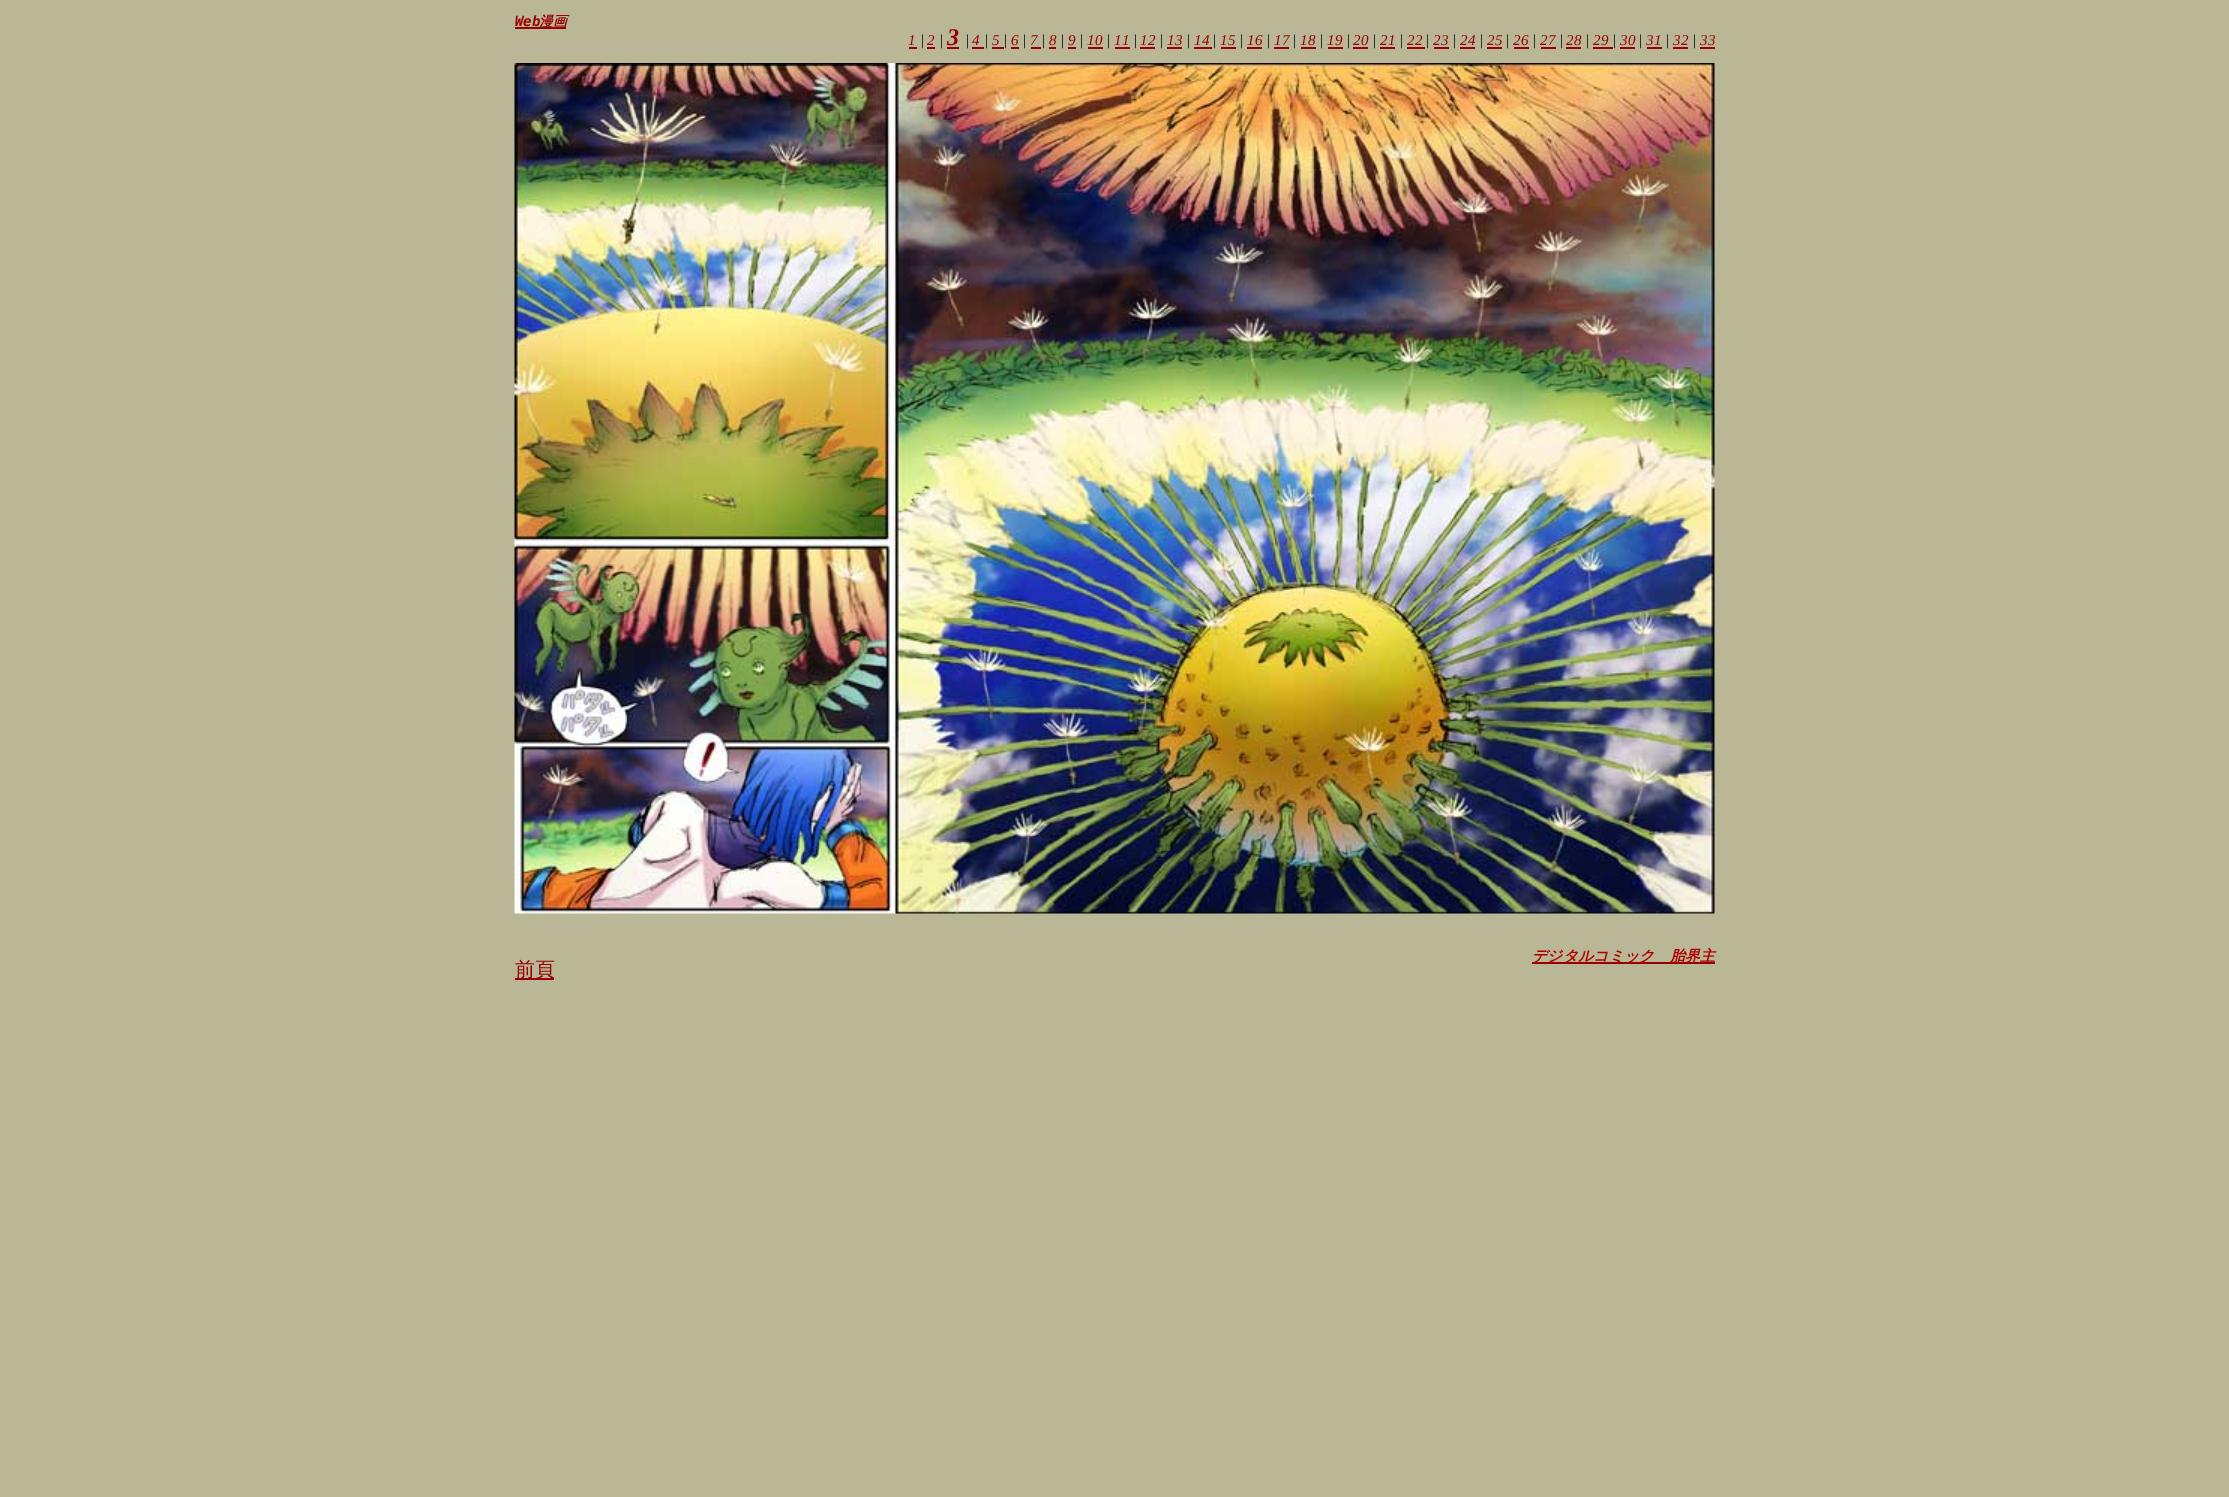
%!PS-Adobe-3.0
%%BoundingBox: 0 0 2229 1497
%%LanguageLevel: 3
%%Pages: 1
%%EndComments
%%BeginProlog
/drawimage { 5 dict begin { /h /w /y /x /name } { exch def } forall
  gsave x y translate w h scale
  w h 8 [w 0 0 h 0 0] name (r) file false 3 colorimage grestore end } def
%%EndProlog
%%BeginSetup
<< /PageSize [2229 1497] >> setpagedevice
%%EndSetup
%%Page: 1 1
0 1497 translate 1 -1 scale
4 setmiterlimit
0.729 0.718 0.588 setrgbcolor
0 0 2229 1497 rectfill
0.6 0 0.008 setrgbcolor
515 27 51 2 rectfill
909 47 8 2 rectfill
927 47 8 2 rectfill
947 47 12 2 rectfill
972 47 12 2 rectfill
992 47 12 2 rectfill
1011 47 8 2 rectfill
1031 47 10 2 rectfill
1049 47 7 2 rectfill
1068 47 8 2 rectfill
1088 47 15 2 rectfill
1115 47 15 2 rectfill
1140 47 15 2 rectfill
1167 47 15 2 rectfill
1194 47 18 2 rectfill
1221 47 15 2 rectfill
1247 47 15 2 rectfill
1274 47 15 2 rectfill
1301 47 15 2 rectfill
1328 47 15 2 rectfill
1353 47 15 2 rectfill
1380 47 15 2 rectfill
1407 47 18 2 rectfill
1434 47 15 2 rectfill
1460 47 15 2 rectfill
1487 47 15 2 rectfill
1514 47 15 2 rectfill
1541 47 15 2 rectfill
1566 47 15 2 rectfill
1593 47 20 2 rectfill
1620 47 15 2 rectfill
1647 47 15 2 rectfill
1673 47 15 2 rectfill
1700 47 15 2 rectfill
(images/1.raw) 514 63 1201 851 drawimage
1532 962 183 2 rectfill
515 978 39 2 rectfill
/DejaVuSansMono-BoldItalic [14 0 0 -14 0 0] selectfont
515 26 moveto (Web) show
/WenQuanYiZenHei-BoldItalic [14 0 0 -14 0 0] selectfont
539 26 moveto (漫画) show
/LiberationSerif-Italic [15 0 0 -15 0 0] selectfont
908 45 moveto (1) show
0 setgray
920 45 moveto (|) show
0.6 0 0.008 setrgbcolor
927 45 moveto (2) show
0 setgray
939 45 moveto (|) show
/LiberationSerif-BoldItalic [24 0 0 -24 0 0] selectfont
0.6 0 0.008 setrgbcolor
947 45 moveto (3) show
/LiberationSerif-Italic [15 0 0 -15 0 0] selectfont
0 setgray
965 45 moveto (|) show
0.6 0 0.008 setrgbcolor
972 45 moveto (4) show
0 setgray
984 45 moveto (|) show
0.6 0 0.008 setrgbcolor
992 45 moveto (5) show
0 setgray
1003 45 moveto (|) show
0.6 0 0.008 setrgbcolor
1011 45 moveto (6) show
0 setgray
1022 45 moveto (|) show
0.6 0 0.008 setrgbcolor
1030 45 moveto (7) show
0 setgray
1041 45 moveto (|) show
0.6 0 0.008 setrgbcolor
1049 45 moveto (8) show
0 setgray
1060 45 moveto (|) show
0.6 0 0.008 setrgbcolor
1068 45 moveto (9) show
0 setgray
1079 45 moveto (|) show
0.6 0 0.008 setrgbcolor
1087 45 moveto (10) show
0 setgray
1106 45 moveto (|) show
0.6 0 0.008 setrgbcolor
1114 45 moveto (11) show
0 setgray
1133 45 moveto (|) show
0.6 0 0.008 setrgbcolor
1140 45 moveto (12) show
0 setgray
1159 45 moveto (|) show
0.6 0 0.008 setrgbcolor
1167 45 moveto (13) show
0 setgray
1186 45 moveto (|) show
0.6 0 0.008 setrgbcolor
1194 45 moveto (14) show
0 setgray
1212 45 moveto (|) show
0.6 0 0.008 setrgbcolor
1220 45 moveto (15) show
0 setgray
1239 45 moveto (|) show
0.6 0 0.008 setrgbcolor
1247 45 moveto (16) show
0 setgray
1266 45 moveto (|) show
0.6 0 0.008 setrgbcolor
1274 45 moveto (17) show
0 setgray
1292 45 moveto (|) show
0.6 0 0.008 setrgbcolor
1300 45 moveto (18) show
0 setgray
1319 45 moveto (|) show
0.6 0 0.008 setrgbcolor
1327 45 moveto (19) show
0 setgray
1346 45 moveto (|) show
0.6 0 0.008 setrgbcolor
1353 45 moveto (20) show
0 setgray
1372 45 moveto (|) show
0.6 0 0.008 setrgbcolor
1380 45 moveto (21) show
0 setgray
1399 45 moveto (|) show
0.6 0 0.008 setrgbcolor
1407 45 moveto (22) show
0 setgray
1425 45 moveto (|) show
0.6 0 0.008 setrgbcolor
1433 45 moveto (23) show
0 setgray
1452 45 moveto (|) show
0.6 0 0.008 setrgbcolor
1460 45 moveto (24) show
0 setgray
1479 45 moveto (|) show
0.6 0 0.008 setrgbcolor
1487 45 moveto (25) show
0 setgray
1505 45 moveto (|) show
0.6 0 0.008 setrgbcolor
1513 45 moveto (26) show
0 setgray
1532 45 moveto (|) show
0.6 0 0.008 setrgbcolor
1540 45 moveto (27) show
0 setgray
1559 45 moveto (|) show
0.6 0 0.008 setrgbcolor
1566 45 moveto (28) show
0 setgray
1585 45 moveto (|) show
0.6 0 0.008 setrgbcolor
1593 45 moveto (29) show
0 setgray
1612 45 moveto (|) show
0.6 0 0.008 setrgbcolor
1620 45 moveto (30) show
0 setgray
1638 45 moveto (|) show
0.6 0 0.008 setrgbcolor
1646 45 moveto (31) show
0 setgray
1665 45 moveto (|) show
0.6 0 0.008 setrgbcolor
1673 45 moveto (32) show
0 setgray
1692 45 moveto (|) show
0.6 0 0.008 setrgbcolor
1700 45 moveto (33) show
/WenQuanYiZenHei-BoldItalic [15 0 0 -15 0 0] selectfont
0.686 0 0 setrgbcolor
1532 961 moveto (デジタルコミック　胎界主) show
/WenQuanYiZenHei-Medium [20 0 0 -20 0 0] selectfont
0.6 0 0.008 setrgbcolor
515 976 moveto (前頁) show
showpage
%%EOF
